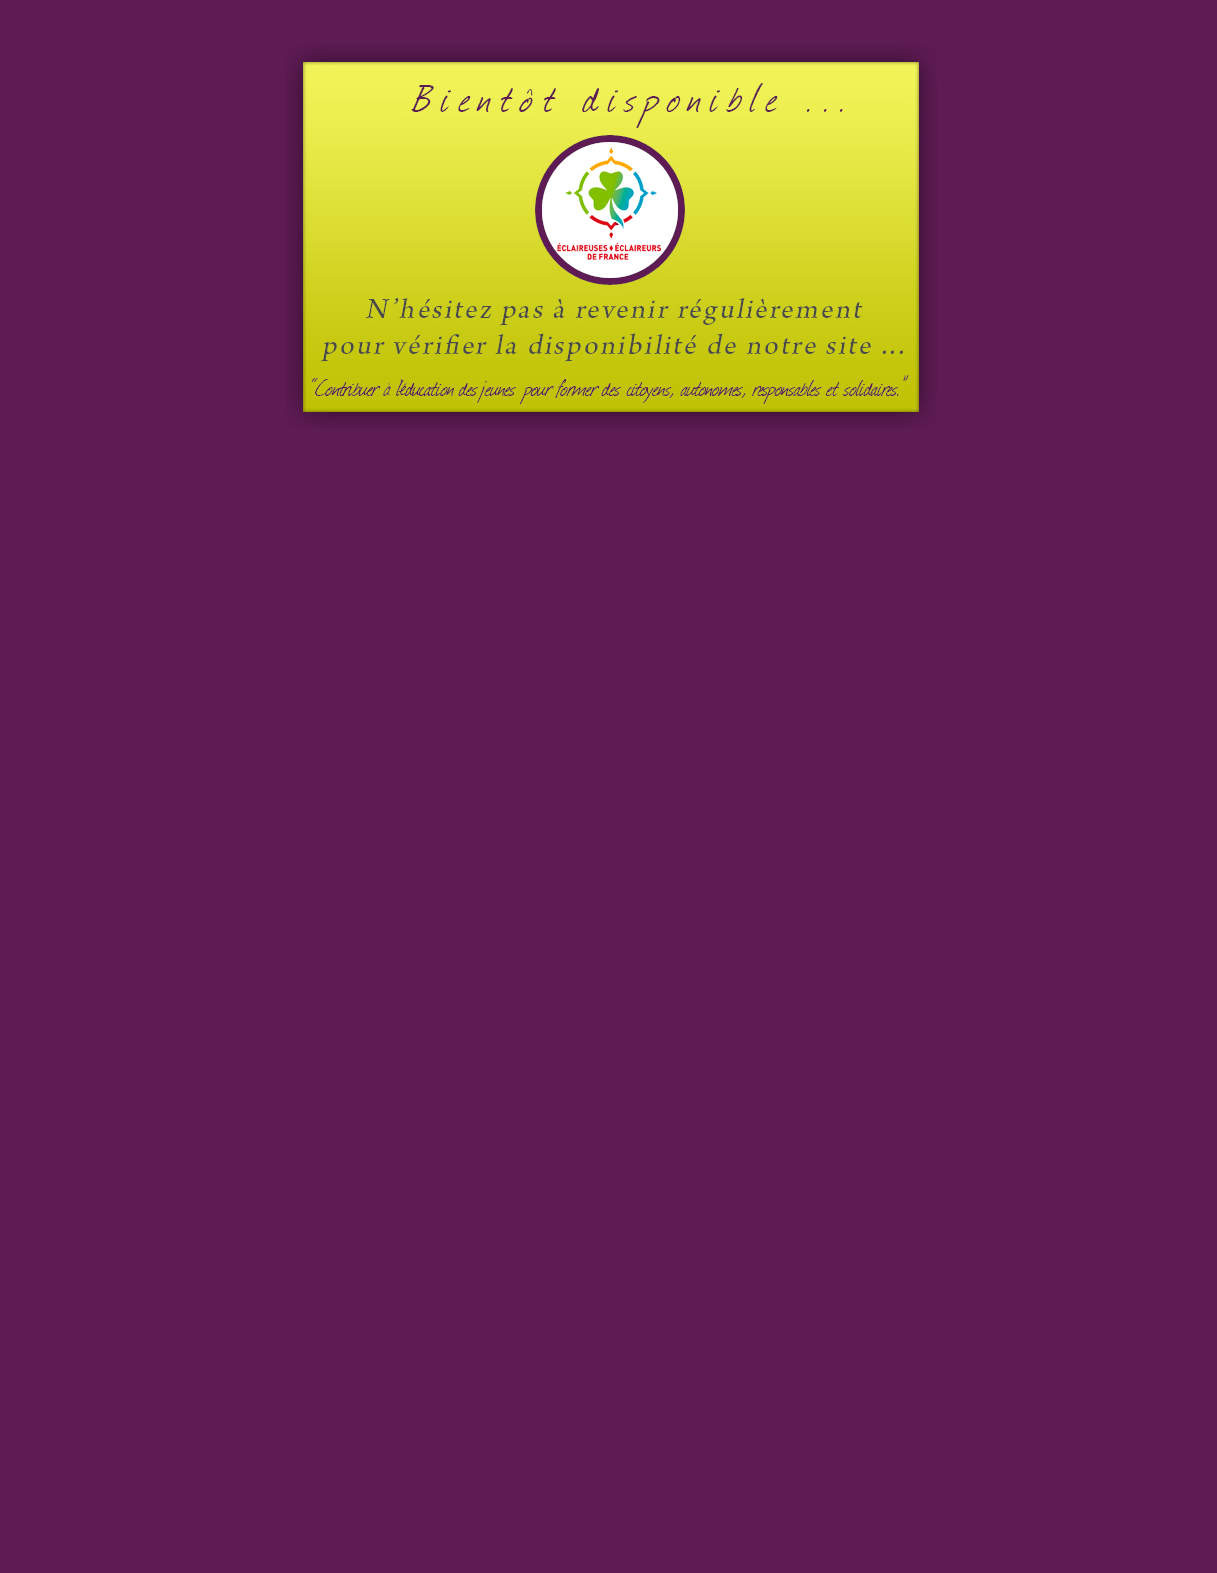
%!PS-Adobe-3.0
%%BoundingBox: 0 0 1217 1573
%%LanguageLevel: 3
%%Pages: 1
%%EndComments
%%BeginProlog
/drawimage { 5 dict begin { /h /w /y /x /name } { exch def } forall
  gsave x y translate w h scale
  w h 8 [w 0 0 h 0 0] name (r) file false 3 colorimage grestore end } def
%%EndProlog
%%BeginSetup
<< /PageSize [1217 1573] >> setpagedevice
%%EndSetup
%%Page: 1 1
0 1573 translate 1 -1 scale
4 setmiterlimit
0.369 0.11 0.333 setrgbcolor
0 0 1217 1573 rectfill
(images/1.raw) 285 44 652 385 drawimage
showpage
%%EOF
